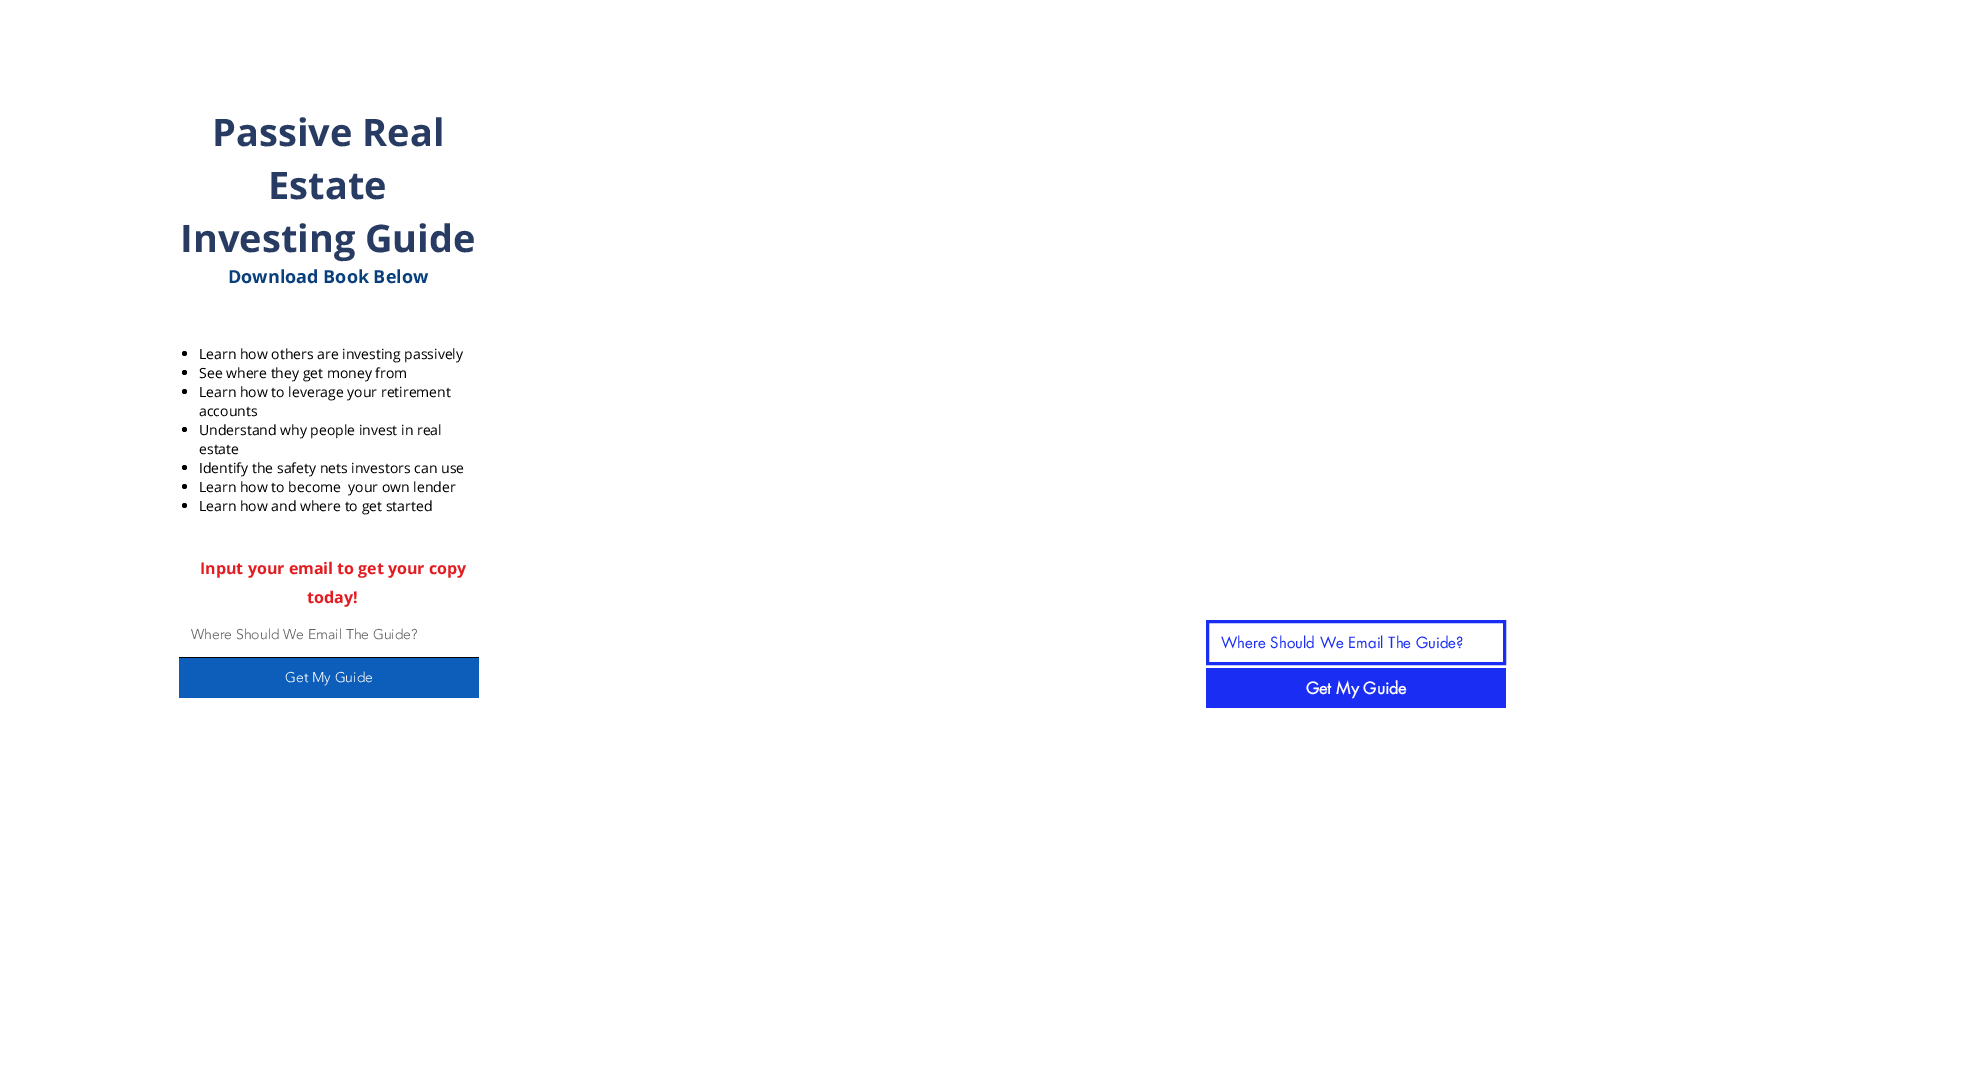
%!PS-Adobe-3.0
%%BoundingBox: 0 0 1970 1083
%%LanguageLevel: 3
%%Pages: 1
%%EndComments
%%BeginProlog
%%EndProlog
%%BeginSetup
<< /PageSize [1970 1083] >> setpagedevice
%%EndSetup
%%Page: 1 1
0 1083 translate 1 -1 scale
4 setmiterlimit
1 setgray
0 0 1970 1083 rectfill
0 setgray
newpath 184.5 353.5 2.5 0 360 arc closepath fill
newpath 184.5 372.5 2.5 0 360 arc closepath fill
newpath 184.5 391.5 2.5 0 360 arc closepath fill
newpath 184.5 429.5 2.5 0 360 arc closepath fill
newpath 184.5 467.5 2.5 0 360 arc closepath fill
newpath 184.5 486.5 2.5 0 360 arc closepath fill
newpath 184.5 505.5 2.5 0 360 arc closepath fill
179 657 300 1 rectfill
0.051 0.369 0.729 setrgbcolor
179 658 300 40 rectfill
0.102 0.176 0.953 setrgbcolor
3 setlinewidth
1207.5 621.5 297 42 rectstroke
1206 668 300 40 rectfill
/OpenSans-Bold [38 0 0 -38 0 0] selectfont
0.157 0.231 0.384 setrgbcolor
212 146 moveto (Passive Real) show
268 199 moveto (Estate) show
180 252 moveto (Investing Guide) show
/OpenSans-Bold [18 0 0 -18 0 0] selectfont
0.035 0.247 0.486 setrgbcolor
228 283 moveto (Download Book Below) show
/OpenSans-Regular [14 0 0 -14 0 0] selectfont
0 setgray
199 359 moveto (Learn how others are investing passively) show
199 378 moveto (See where they get money from) show
199 397 moveto (Learn how to leverage your retirement) show
199 416 moveto (accounts) show
199 435 moveto (Understand why people invest in real) show
199 454 moveto (estate) show
199 473 moveto (Identify the safety nets investors can use) show
199 492 moveto (Learn how to become  your own lender) show
199 511 moveto (Learn how and where to get started) show
/OpenSans-Bold [16 0 0 -16 0 0] selectfont
0.886 0.11 0.129 setrgbcolor
200 574 moveto (Input your email to get your copy) show
307 603 moveto (today!) show
/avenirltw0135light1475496-Light [14 0 0 -14 0 0] selectfont
0.376 setgray
191 639 moveto (Where Should We Email The Guide?) show
1 setgray
285 682 moveto (Get My Guide) show
/futura-Regular [15 0 0 -15 0 0] selectfont
0.102 0.176 0.953 setrgbcolor
1221 648 moveto (Where Should We Email The Guide?) show
/futura-Bold [16 0 0 -16 0 0] selectfont
1 setgray
1306 694 moveto (Get My Guide) show
showpage
%%EOF
